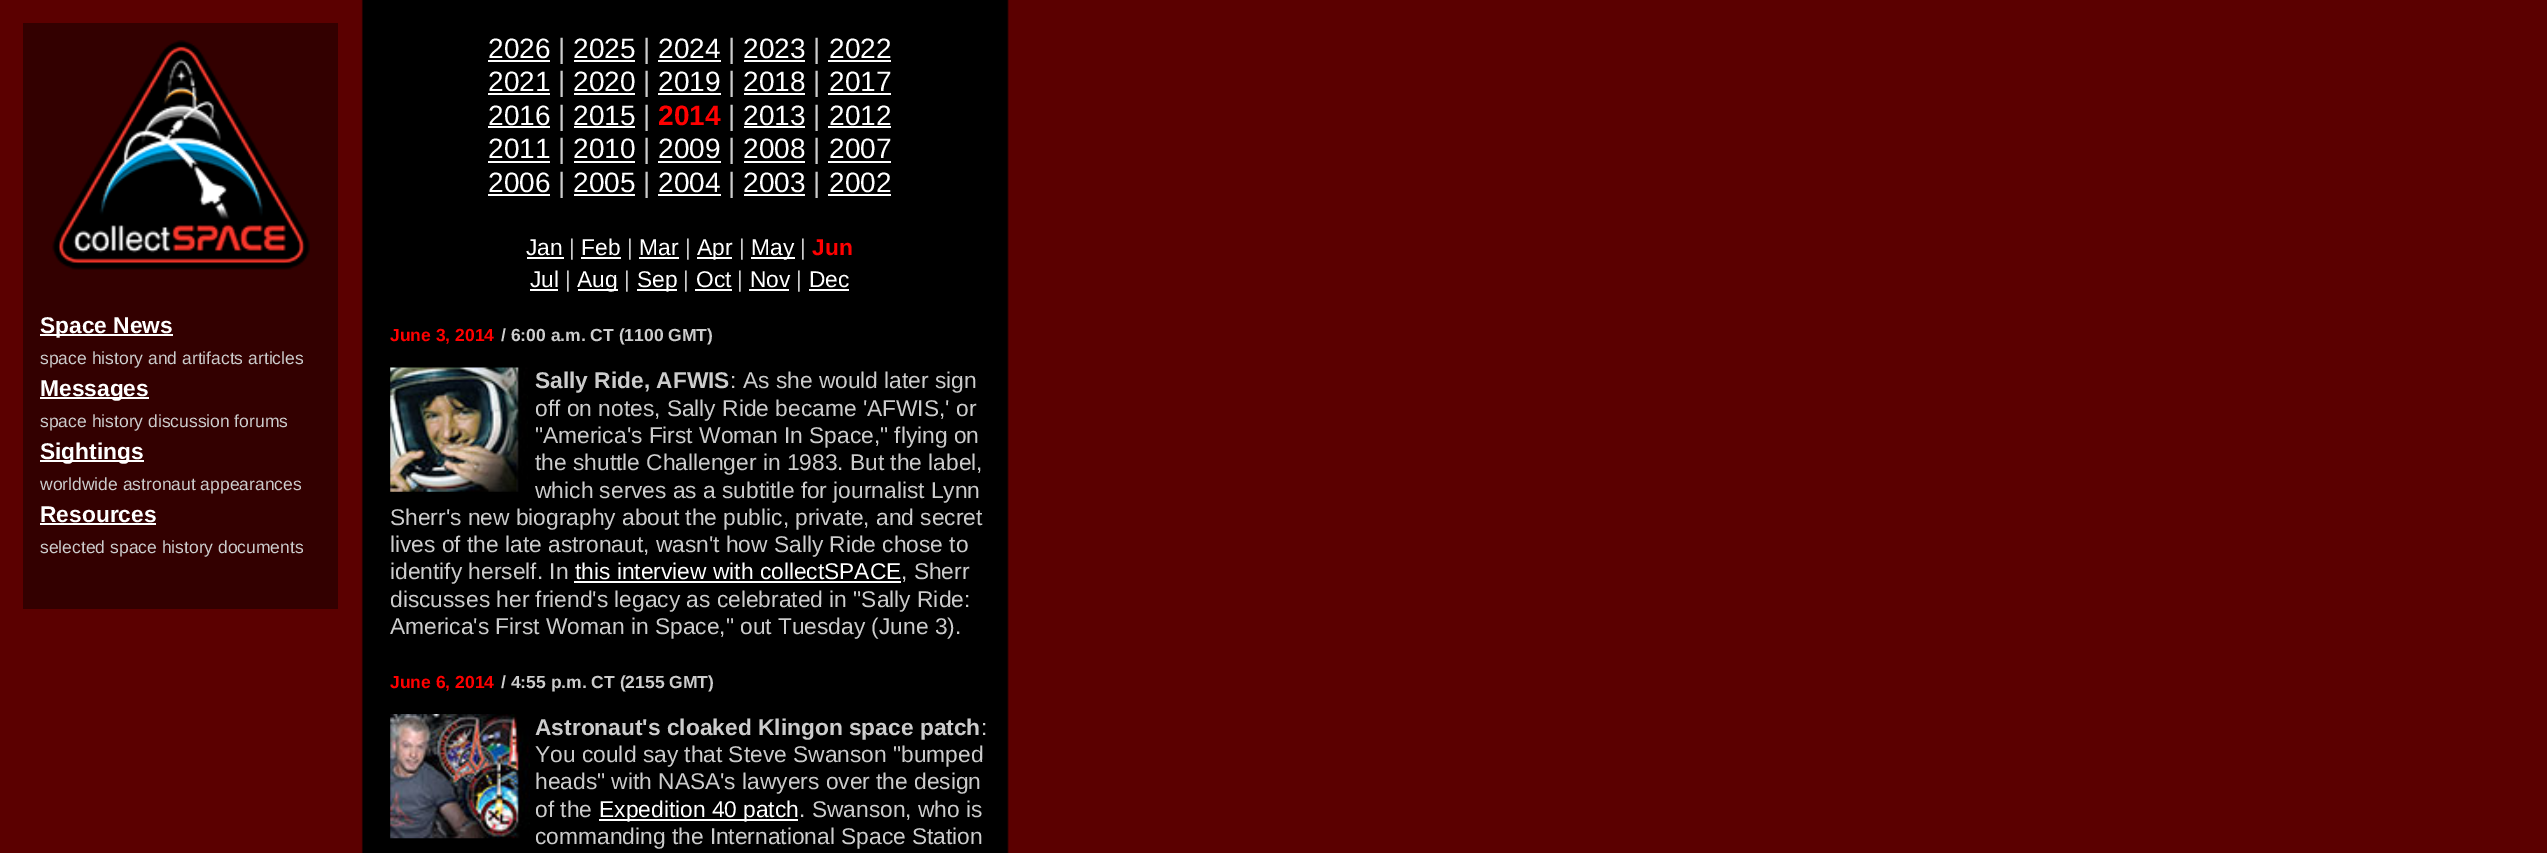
%!PS-Adobe-3.0
%%BoundingBox: 0 0 2547 853
%%LanguageLevel: 3
%%Pages: 1
%%EndComments
%%BeginProlog
/drawimage { 5 dict begin { /h /w /y /x /name } { exch def } forall
  gsave x y translate w h scale
  w h 8 [w 0 0 h 0 0] name (r) file false 3 colorimage grestore end } def
%%EndProlog
%%BeginSetup
<< /PageSize [2547 853] >> setpagedevice
%%EndSetup
%%Page: 1 1
0 853 translate 1 -1 scale
4 setmiterlimit
1 setgray
0 0 2547 853 rectfill
(images/1.raw) 0 0 2547 853 drawimage
0.2 0 0 setrgbcolor
23 23 315 586 rectfill
(images/2.raw) 52 40 258 230 drawimage
1 setgray
40 334 133 2 rectfill
40 397 109 2 rectfill
40 460 104 2 rectfill
40 523 116 2 rectfill
488 60 62 2 rectfill
574 60 61 2 rectfill
658 60 63 2 rectfill
744 60 61 2 rectfill
828 60 63 2 rectfill
488 93 62 2 rectfill
574 93 61 2 rectfill
658 93 63 2 rectfill
744 93 61 2 rectfill
828 93 63 2 rectfill
488 126 62 2 rectfill
574 126 61 2 rectfill
744 126 61 2 rectfill
828 126 63 2 rectfill
488 161 62 2 rectfill
574 161 61 2 rectfill
658 161 63 2 rectfill
744 161 61 2 rectfill
828 161 63 2 rectfill
488 194 62 2 rectfill
574 194 61 2 rectfill
658 194 63 2 rectfill
744 194 61 2 rectfill
828 194 63 2 rectfill
527 257 37 2 rectfill
581 257 40 2 rectfill
639 257 40 2 rectfill
697 257 35 2 rectfill
751 257 44 2 rectfill
530 289 28 2 rectfill
578 289 40 2 rectfill
637 289 40 2 rectfill
695 289 37 2 rectfill
749 289 40 2 rectfill
809 289 40 2 rectfill
(images/3.raw) 390 367 138 125 drawimage
574 581 327 2 rectfill
(images/4.raw) 390 714 140 125 drawimage
599 819 199 2 rectfill
/LiberationSans-Bold [22.75 0 0 -22.75 0 0] selectfont
40 333 moveto (Space News) show
/LiberationSans-Regular [17.5 0 0 -17.5 0 0] selectfont
0.8 setgray
40 364 moveto (space history and artifacts articles) show
/LiberationSans-Bold [22.75 0 0 -22.75 0 0] selectfont
1 setgray
40 396 moveto (Messages) show
/LiberationSans-Regular [17.5 0 0 -17.5 0 0] selectfont
0.8 setgray
40 427 moveto (space history discussion forums) show
/LiberationSans-Bold [22.75 0 0 -22.75 0 0] selectfont
1 setgray
40 459 moveto (Sightings) show
/LiberationSans-Regular [17.5 0 0 -17.5 0 0] selectfont
0.8 setgray
40 490 moveto (worldwide astronaut appearances) show
/LiberationSans-Bold [22.75 0 0 -22.75 0 0] selectfont
1 setgray
40 522 moveto (Resources) show
/LiberationSans-Regular [17.5 0 0 -17.5 0 0] selectfont
0.8 setgray
40 553 moveto (selected space history documents) show
/LiberationSans-Regular [28 0 0 -28 0 0] selectfont
1 setgray
488 58 moveto (2026) show
0.8 setgray
558 58 moveto (|) show
1 setgray
573 58 moveto (2025) show
0.8 setgray
643 58 moveto (|) show
1 setgray
658 58 moveto (2024) show
0.8 setgray
728 58 moveto (|) show
1 setgray
743 58 moveto (2023) show
0.8 setgray
813 58 moveto (|) show
1 setgray
829 58 moveto (2022) show
488 91 moveto (2021) show
0.8 setgray
558 91 moveto (|) show
1 setgray
573 91 moveto (2020) show
0.8 setgray
643 91 moveto (|) show
1 setgray
658 91 moveto (2019) show
0.8 setgray
728 91 moveto (|) show
1 setgray
743 91 moveto (2018) show
0.8 setgray
813 91 moveto (|) show
1 setgray
829 91 moveto (2017) show
488 125 moveto (2016) show
0.8 setgray
558 125 moveto (|) show
1 setgray
573 125 moveto (2015) show
0.8 setgray
643 125 moveto (|) show
/LiberationSans-Bold [28 0 0 -28 0 0] selectfont
1 0 0 setrgbcolor
658 125 moveto (2014) show
/LiberationSans-Regular [28 0 0 -28 0 0] selectfont
0.8 setgray
728 125 moveto (|) show
1 setgray
743 125 moveto (2013) show
0.8 setgray
813 125 moveto (|) show
1 setgray
829 125 moveto (2012) show
488 158 moveto (2011) show
0.8 setgray
558 158 moveto (|) show
1 setgray
573 158 moveto (2010) show
0.8 setgray
643 158 moveto (|) show
1 setgray
658 158 moveto (2009) show
0.8 setgray
728 158 moveto (|) show
1 setgray
743 158 moveto (2008) show
0.8 setgray
813 158 moveto (|) show
1 setgray
829 158 moveto (2007) show
488 192 moveto (2006) show
0.8 setgray
558 192 moveto (|) show
1 setgray
573 192 moveto (2005) show
0.8 setgray
643 192 moveto (|) show
1 setgray
658 192 moveto (2004) show
0.8 setgray
728 192 moveto (|) show
1 setgray
743 192 moveto (2003) show
0.8 setgray
813 192 moveto (|) show
1 setgray
829 192 moveto (2002) show
/LiberationSans-Regular [22.75 0 0 -22.75 0 0] selectfont
526 255 moveto (Jan) show
0.8 setgray
569 255 moveto (|) show
1 setgray
581 255 moveto (Feb) show
0.8 setgray
627 255 moveto (|) show
1 setgray
639 255 moveto (Mar) show
0.8 setgray
685 255 moveto (|) show
1 setgray
697 255 moveto (Apr) show
0.8 setgray
739 255 moveto (|) show
1 setgray
751 255 moveto (May) show
0.8 setgray
800 255 moveto (|) show
/LiberationSans-Bold [22.75 0 0 -22.75 0 0] selectfont
1 0 0 setrgbcolor
812 255 moveto (Jun) show
/LiberationSans-Regular [22.75 0 0 -22.75 0 0] selectfont
1 setgray
530 287 moveto (Jul) show
0.8 setgray
565 287 moveto (|) show
1 setgray
577 287 moveto (Aug) show
0.8 setgray
624 287 moveto (|) show
1 setgray
637 287 moveto (Sep) show
0.8 setgray
683 287 moveto (|) show
1 setgray
696 287 moveto (Oct) show
0.8 setgray
737 287 moveto (|) show
1 setgray
750 287 moveto (Nov) show
0.8 setgray
796 287 moveto (|) show
1 setgray
809 287 moveto (Dec) show
/LiberationSans-Bold [17.5 0 0 -17.5 0 0] selectfont
1 0 0 setrgbcolor
390 341 moveto (June 3, 2014) show
0.8 setgray
501 341 moveto (/ 6:00 a.m. CT \(1100 GMT\)) show
/LiberationSans-Bold [22.75 0 0 -22.75 0 0] selectfont
535 388 moveto (Sally Ride, AFWIS) show
/LiberationSans-Regular [22.75 0 0 -22.75 0 0] selectfont
730 388 moveto (: As she would later sign) show
535 416 moveto (off on notes, Sally Ride became 'AFWIS,' or) show
535 443 moveto ("America's First Woman In Space," flying on) show
535 470 moveto (the shuttle Challenger in 1983. But the label,) show
535 498 moveto (which serves as a subtitle for journalist Lynn) show
390 525 moveto (Sherr's new biography about the public, private, and secret) show
390 552 moveto (lives of the late astronaut, wasn't how Sally Ride chose to) show
390 579 moveto (identify herself. In) show
1 setgray
575 579 moveto (this interview with collectSPACE) show
0.8 setgray
901 579 moveto (, Sherr) show
390 607 moveto (discusses her friend's legacy as celebrated in "Sally Ride:) show
390 634 moveto (America's First Woman in Space," out Tuesday \(June 3\).) show
/LiberationSans-Bold [17.5 0 0 -17.5 0 0] selectfont
1 0 0 setrgbcolor
390 688 moveto (June 6, 2014) show
0.8 setgray
501 688 moveto (/ 4:55 p.m. CT \(2155 GMT\)) show
/LiberationSans-Bold [22.75 0 0 -22.75 0 0] selectfont
535 735 moveto (Astronaut's cloaked Klingon space patch) show
/LiberationSans-Regular [22.75 0 0 -22.75 0 0] selectfont
981 735 moveto (:) show
535 762 moveto (You could say that Steve Swanson "bumped) show
535 789 moveto (heads" with NASA's lawyers over the design) show
535 817 moveto (of the) show
1 setgray
599 817 moveto (Expedition 40 patch) show
0.8 setgray
799 817 moveto (. Swanson, who is) show
535 844 moveto (commanding the International Space Station) show
showpage
%%EOF
